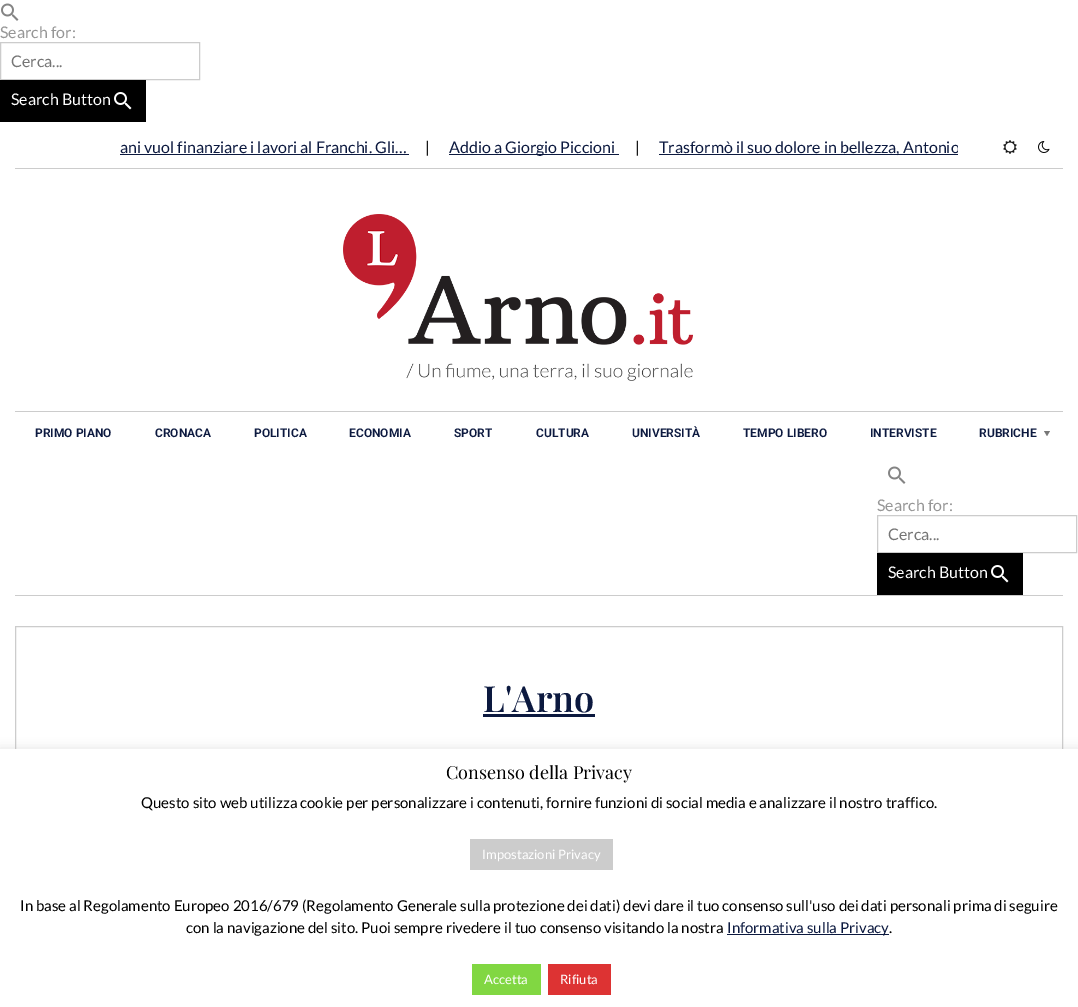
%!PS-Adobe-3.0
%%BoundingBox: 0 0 1078 1007
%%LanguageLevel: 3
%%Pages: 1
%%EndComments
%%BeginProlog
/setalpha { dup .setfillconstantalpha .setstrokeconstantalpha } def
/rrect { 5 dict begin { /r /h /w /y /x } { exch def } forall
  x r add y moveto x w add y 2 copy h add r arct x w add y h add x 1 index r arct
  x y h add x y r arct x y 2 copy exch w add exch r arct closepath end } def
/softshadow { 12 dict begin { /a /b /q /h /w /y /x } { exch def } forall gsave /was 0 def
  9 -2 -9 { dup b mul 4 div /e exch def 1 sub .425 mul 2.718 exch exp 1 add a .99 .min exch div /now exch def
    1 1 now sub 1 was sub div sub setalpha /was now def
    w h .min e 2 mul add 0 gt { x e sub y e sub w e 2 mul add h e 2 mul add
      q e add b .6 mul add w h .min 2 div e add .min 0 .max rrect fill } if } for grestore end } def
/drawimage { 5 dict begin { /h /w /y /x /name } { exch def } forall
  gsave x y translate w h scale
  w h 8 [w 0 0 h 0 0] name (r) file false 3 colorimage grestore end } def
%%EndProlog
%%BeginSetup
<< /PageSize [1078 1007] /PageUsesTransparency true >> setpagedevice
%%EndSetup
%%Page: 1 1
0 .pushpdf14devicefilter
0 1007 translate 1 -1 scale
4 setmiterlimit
1 setgray
0 0 1078 1007 rectfill
(images/1.raw) 1 3 18 18 drawimage
0.8 setgray
0.5 42.5 199 37 rectstroke
0 setgray
0 80 146 42 rectfill
(images/2.raw) 114 92 18 18 drawimage
0.8 setgray
15 168 1048 1 rectfill
0.047 0.098 0.247 setrgbcolor
120 154 289 1 rectfill
449 154 170 1 rectfill
659 154 299 1 rectfill
(images/3.raw) 1003 140 14 14 drawimage
(images/4.raw) 1038 141 12 12 drawimage
(images/5.raw) 1003 140 14 14 drawimage
(images/6.raw) 343 214 350 167 drawimage
0.8 setgray
15 411 1048 1 rectfill
15 595 1048 1 rectfill
0.467 setgray
newpath 1044 431 moveto 1050 431 lineto 1047 436 lineto closepath fill
(images/1.raw) 888 466 18 18 drawimage
0.8 setgray
877.5 515.5 199 37 rectstroke
0 setgray
877 553 146 42 rectfill
(images/2.raw) 991 565 18 18 drawimage
0.8 setgray
15.5 626.5 1047 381 rectstroke
0.047 0.098 0.247 setrgbcolor
483 714 112 3 rectfill
0.675 0.671 0.671 setrgbcolor
0 748 1078 258 0 5 0.3 softshadow
1 setgray
0 749 1078 258 rectfill
0.8 setgray
470 839 143 31 rectfill
0.047 0.098 0.247 setrgbcolor
727 934 162 1 rectfill
0.506 0.843 0.259 setrgbcolor
472 964 69 31 rectfill
0.867 0.2 0.2 setrgbcolor
548 964 63 31 rectfill
/Lato-Regular [16 0 0 -16 0 0] selectfont
0.588 setgray
0 38 moveto (Search for:) show
0.459 setgray
11 67 moveto (Cerca...) show
1 setgray
11 105 moveto (Search Button) show
0.047 0.098 0.247 setrgbcolor
120 153 moveto (ani vuol finanziare i lavori al Franchi. Gli…) show
0.094 setgray
425 153 moveto (|) show
0.047 0.098 0.247 setrgbcolor
449 153 moveto (Addio a Giorgio Piccioni) show
0.094 setgray
635 153 moveto (|) show
gsave
120 129 838 34 rectclip
0.047 0.098 0.247 setrgbcolor
659 153 moveto (Trasformò il suo dolore in bellezza, Antonio) show
grestore
/Roboto-SemiBold [12 0 0 -12 0 0] selectfont
0.047 0.098 0.247 setrgbcolor
35 437 moveto (PRIMO PIANO) show
155 437 moveto (CRONACA) show
254 437 moveto (POLITICA) show
349 437 moveto (ECONOMIA) show
454 437 moveto (SPORT) show
536 437 moveto (CULTURA) show
632 437 moveto (UNIVERSITÀ) show
743 437 moveto (TEMPO LIBERO) show
870 437 moveto (INTERVISTE) show
979 437 moveto (RUBRICHE) show
/Lato-Regular [16 0 0 -16 0 0] selectfont
0.588 setgray
877 511 moveto (Search for:) show
0.459 setgray
888 540 moveto (Cerca...) show
1 setgray
888 578 moveto (Search Button) show
/PlayfairDisplay-SemiBold [36 0 0 -36 0 0] selectfont
0.047 0.098 0.247 setrgbcolor
483 712 moveto (L'Arno) show
/PlayfairDisplay-Regular [18 0 0 -18 0 0] selectfont
0 setgray
446 779 moveto (Consenso della Privacy) show
/Lato-Regular [15 0 0 -15 0 0] selectfont
141 808 moveto (Questo sito web utilizza cookie per personalizzare i contenuti, fornire funzioni di social media e analizzare il nostro traffico.) show
/Lato-Regular [13 0 0 -13 0 0] selectfont
1 setgray
482 859 moveto (Impostazioni Privacy) show
/Lato-Regular [15 0 0 -15 0 0] selectfont
0 setgray
20 911 moveto (In base al Regolamento Europeo 2016/679 \(Regolamento Generale sulla protezione dei dati\) devi dare il tuo consenso sull'uso dei dati personali prima di seguire) show
186 933 moveto (con la navigazione del sito. Puoi sempre rivedere il tuo consenso visitando la nostra) show
0.047 0.098 0.247 setrgbcolor
727 933 moveto (Informativa sulla Privacy) show
0 setgray
889 933 moveto (.) show
/Lato-Regular [13 0 0 -13 0 0] selectfont
1 setgray
484 984 moveto (Accetta) show
560 984 moveto (Rifiuta) show
.poppdf14devicefilter showpage
%%EOF
